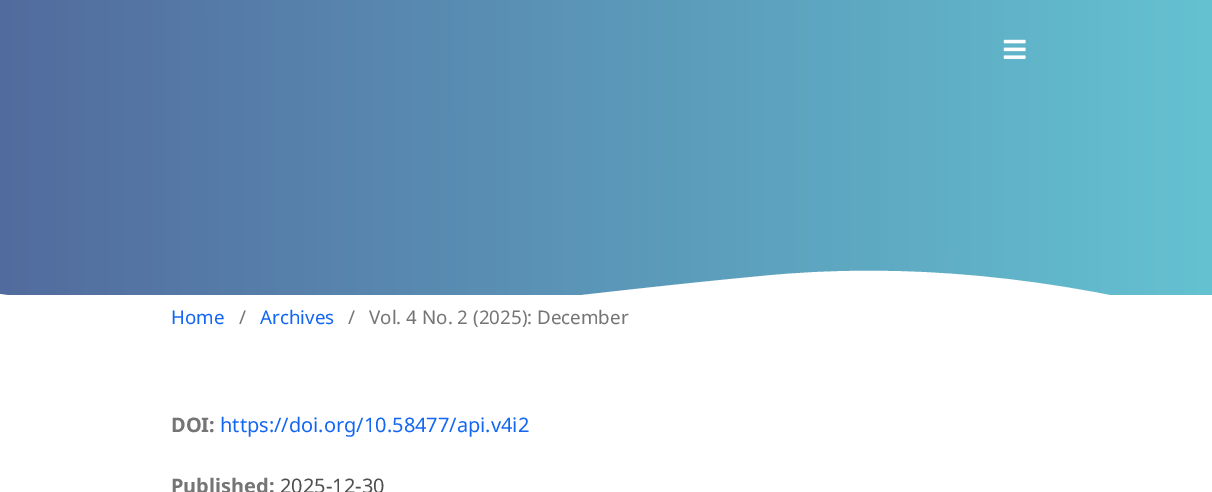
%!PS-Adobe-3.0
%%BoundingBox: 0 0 1212 492
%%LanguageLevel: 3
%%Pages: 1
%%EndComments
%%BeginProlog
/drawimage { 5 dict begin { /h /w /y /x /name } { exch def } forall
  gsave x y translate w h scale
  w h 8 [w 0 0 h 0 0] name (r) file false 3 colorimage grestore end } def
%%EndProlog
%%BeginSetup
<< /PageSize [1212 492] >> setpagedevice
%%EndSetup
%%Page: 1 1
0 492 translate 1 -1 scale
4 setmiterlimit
1 setgray
0 0 1212 492 rectfill
gsave newpath 0 0 moveto 1212 0 lineto 1212 295 lineto 0 295 lineto closepath clip newpath
<< /ShadingType 2 /ColorSpace /DeviceRGB /Coords [0 148 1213 147] /Extend [true true] /Function << /FunctionType 2 /Domain [0 1] /C0 [0.322 0.42 0.62] /C1 [0.392 0.761 0.82] /N 1 >> >> shfill grestore
(images/1.raw) 1003 39 23 20 drawimage
gsave
0 189 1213 106 rectclip
newpath 0 294 moveto 111 310 207 319 290 319 curveto 414 319 550 296 762 276 curveto 903 262 1053 276 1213 319 curveto 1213 438 lineto 0 438 lineto closepath eofill
grestore
/NotoSans-Regular [18.75 0 0 -18.75 0 0] selectfont
0.071 0.4 0.945 setrgbcolor
171 324 moveto (Home) show
/NotoSans-Regular [19 0 0 -19 0 0] selectfont
0.459 setgray
239 324 moveto (/) show
/NotoSans-Regular [18.75 0 0 -18.75 0 0] selectfont
0.071 0.4 0.945 setrgbcolor
260 324 moveto (Archives) show
/NotoSans-Regular [19 0 0 -19 0 0] selectfont
0.459 setgray
348 324 moveto (/) show
/NotoSans-Regular [18.75 0 0 -18.75 0 0] selectfont
369 324 moveto (Vol. 4 No. 2 \(2025\): December) show
/NotoSans-Bold [20 0 0 -20 0 0] selectfont
171 432 moveto (DOI:) show
/NotoSans-Regular [20 0 0 -20 0 0] selectfont
0.071 0.4 0.945 setrgbcolor
220 432 moveto (https://doi.org/10.58477/api.v4i2) show
/NotoSans-Bold [20 0 0 -20 0 0] selectfont
0.459 setgray
171 493 moveto (Published:) show
/NotoSans-Regular [20 0 0 -20 0 0] selectfont
0.31 setgray
280 493 moveto (2025-12-30) show
showpage
%%EOF
